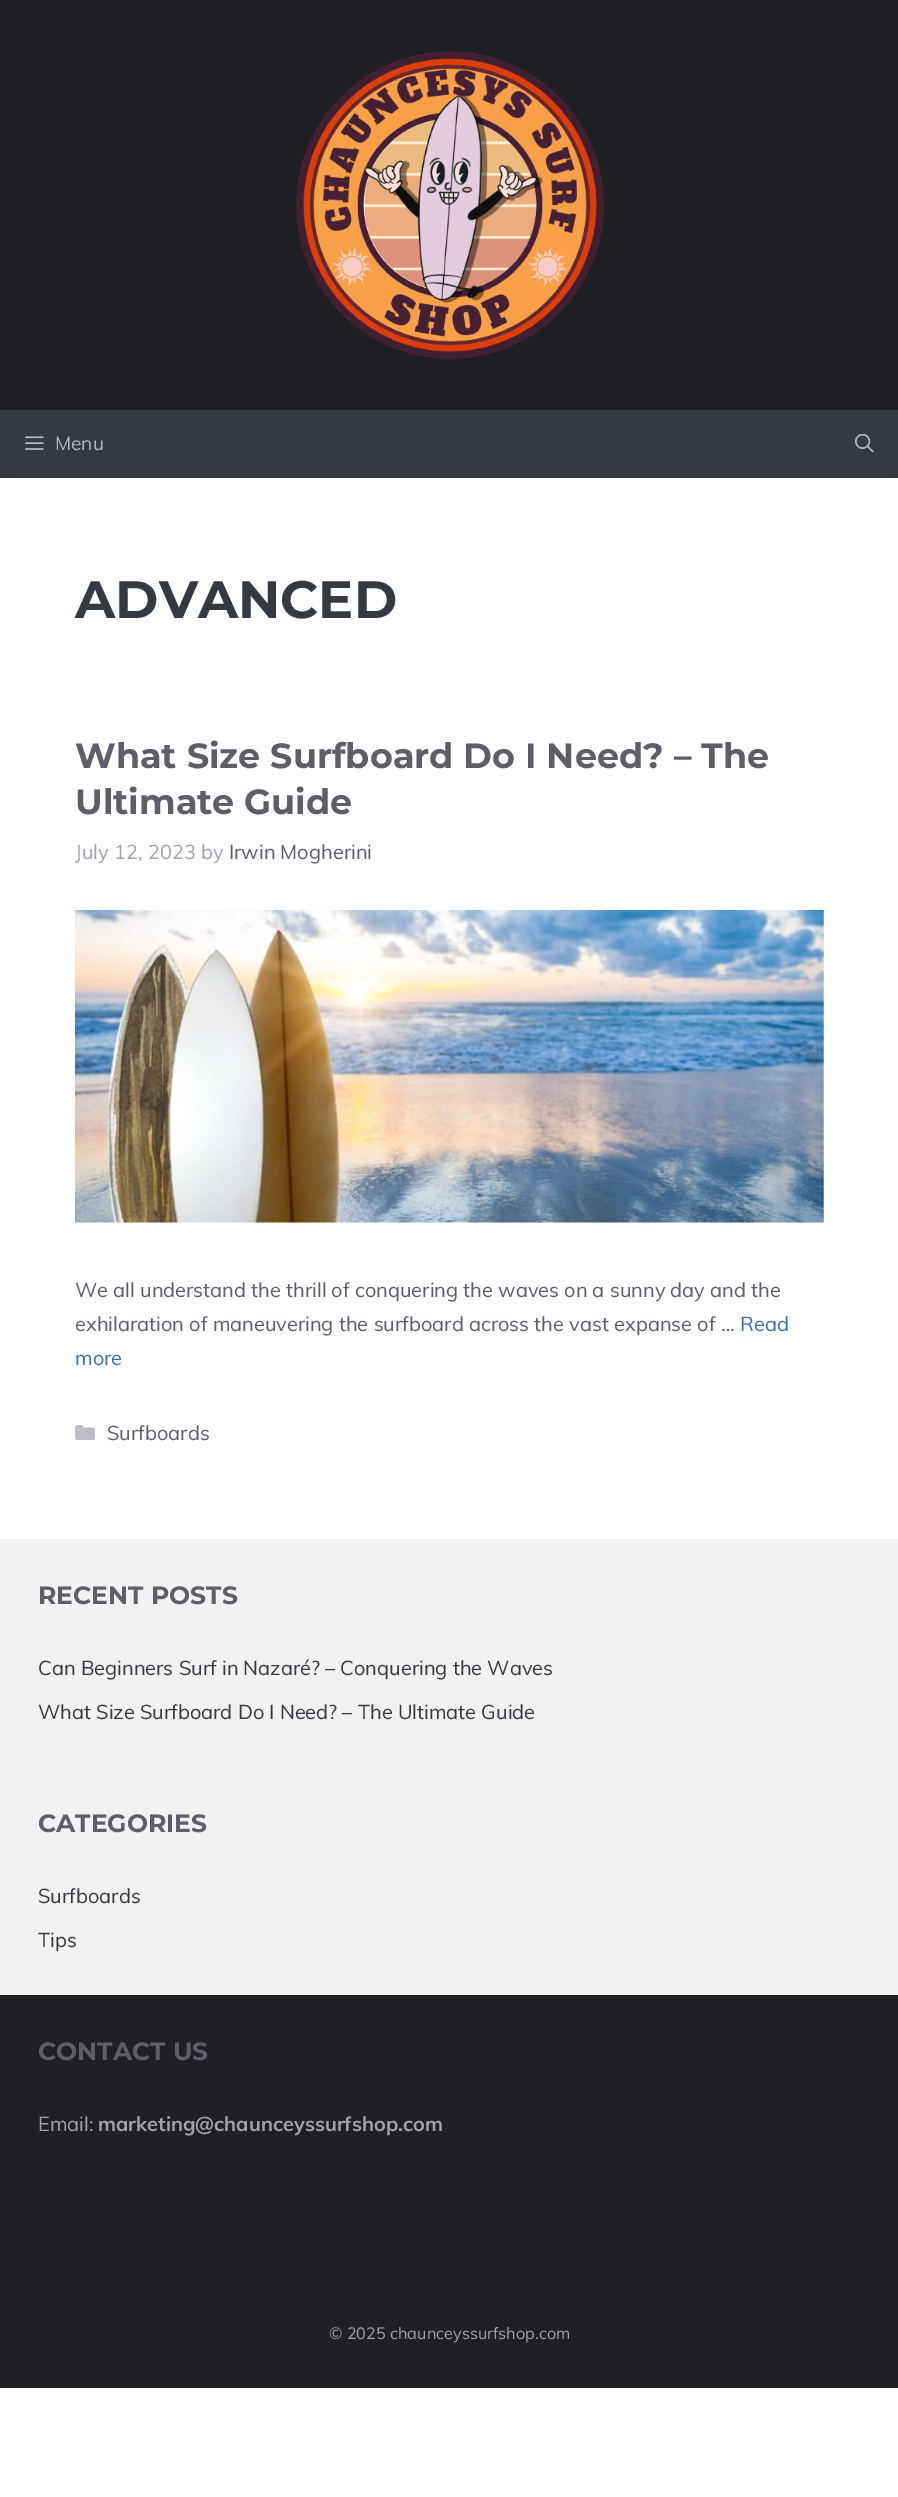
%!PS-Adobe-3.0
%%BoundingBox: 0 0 898 2497
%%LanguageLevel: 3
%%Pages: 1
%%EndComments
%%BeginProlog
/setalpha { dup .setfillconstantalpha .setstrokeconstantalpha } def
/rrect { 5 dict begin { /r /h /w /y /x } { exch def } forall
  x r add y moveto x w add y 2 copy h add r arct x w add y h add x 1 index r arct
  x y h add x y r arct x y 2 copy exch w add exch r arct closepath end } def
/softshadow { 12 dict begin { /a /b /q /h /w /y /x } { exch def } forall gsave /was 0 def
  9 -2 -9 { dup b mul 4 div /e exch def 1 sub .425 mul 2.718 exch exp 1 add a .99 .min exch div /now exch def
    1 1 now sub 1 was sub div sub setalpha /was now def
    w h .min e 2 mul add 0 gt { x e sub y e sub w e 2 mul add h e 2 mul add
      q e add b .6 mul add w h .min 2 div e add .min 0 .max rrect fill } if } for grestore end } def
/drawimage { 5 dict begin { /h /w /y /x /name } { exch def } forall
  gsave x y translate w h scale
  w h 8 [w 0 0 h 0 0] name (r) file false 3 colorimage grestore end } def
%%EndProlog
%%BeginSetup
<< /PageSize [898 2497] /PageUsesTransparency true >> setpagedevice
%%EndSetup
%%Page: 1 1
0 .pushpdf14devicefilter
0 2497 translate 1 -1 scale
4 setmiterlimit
1 setgray
0 0 898 2497 rectfill
0.122 0.125 0.141 setrgbcolor
0 0 898 410 rectfill
(images/1.raw) 296 51 308 308 drawimage
0.204 0.227 0.251 setrgbcolor
0 410 898 68 rectfill
(images/2.raw) 25 436 19 14 drawimage
gsave
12 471 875 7 rectclip
0 setgray
13 490 873 1493 0 12.5 0.3 softshadow
grestore
(images/3.raw) 855 434 19 19 drawimage
(images/4.raw) 75 910 749 313 drawimage
(images/5.raw) 75 1425 20 15 drawimage
0.949 setgray
0 1539 898 456 rectfill
0.122 0.125 0.141 setrgbcolor
0 1995 898 393 rectfill
/Muli-Regular [19 0 0 -19 0 0] selectfont
0.71 0.718 0.749 setrgbcolor
55 450 moveto (Menu) show
/Montserrat-Bold [52.5 0 0 -52.5 0 0] selectfont
0.204 0.227 0.251 setrgbcolor
75 618 moveto (ADVANCED) show
/Montserrat-Bold [35 0 0 -35 0 0] selectfont
0.369 0.369 0.412 setrgbcolor
75 768 moveto (What Size Surfboard Do I Need? – The) show
75 814 moveto (Ultimate Guide) show
/Muli-Regular [20 0 0 -20 0 0] selectfont
0.627 0.631 0.678 setrgbcolor
75 859 moveto (July 12, 2023 by) show
0.369 0.369 0.412 setrgbcolor
229 859 moveto (Irwin Mogherini) show
75 1297 moveto (We all understand the thrill of conquering the waves on a sunny day and the) show
75 1331 moveto (exhilaration of maneuvering the surfboard across the vast expanse of …) show
0.224 0.431 0.702 setrgbcolor
740 1331 moveto (Read) show
75 1365 moveto (more) show
0.369 0.369 0.412 setrgbcolor
107 1440 moveto (Surfboards) show
/Montserrat-Bold [25 0 0 -25 0 0] selectfont
38 1604 moveto (RECENT POSTS) show
/Muli-Regular [20 0 0 -20 0 0] selectfont
0.204 0.227 0.251 setrgbcolor
38 1675 moveto (Can Beginners Surf in Nazaré? – Conquering the Waves) show
38 1719 moveto (What Size Surfboard Do I Need? – The Ultimate Guide) show
/Montserrat-Bold [25 0 0 -25 0 0] selectfont
0.369 0.369 0.412 setrgbcolor
38 1832 moveto (CATEGORIES) show
/Muli-Regular [20 0 0 -20 0 0] selectfont
0.204 0.227 0.251 setrgbcolor
38 1903 moveto (Surfboards) show
38 1947 moveto (Tips) show
/Montserrat-Bold [25 0 0 -25 0 0] selectfont
0.369 0.369 0.412 setrgbcolor
38 2060 moveto (CONTACT US) show
/Muli-Regular [20 0 0 -20 0 0] selectfont
0.627 0.631 0.678 setrgbcolor
38 2131 moveto (Email:) show
/Muli-Bold [20 0 0 -20 0 0] selectfont
98 2131 moveto (marketing@chaunceyssurfshop.com) show
/Muli-Regular [16.25 0 0 -16.25 0 0] selectfont
329 2339 moveto (© 2025 chaunceyssurfshop.com) show
.poppdf14devicefilter showpage
%%EOF
